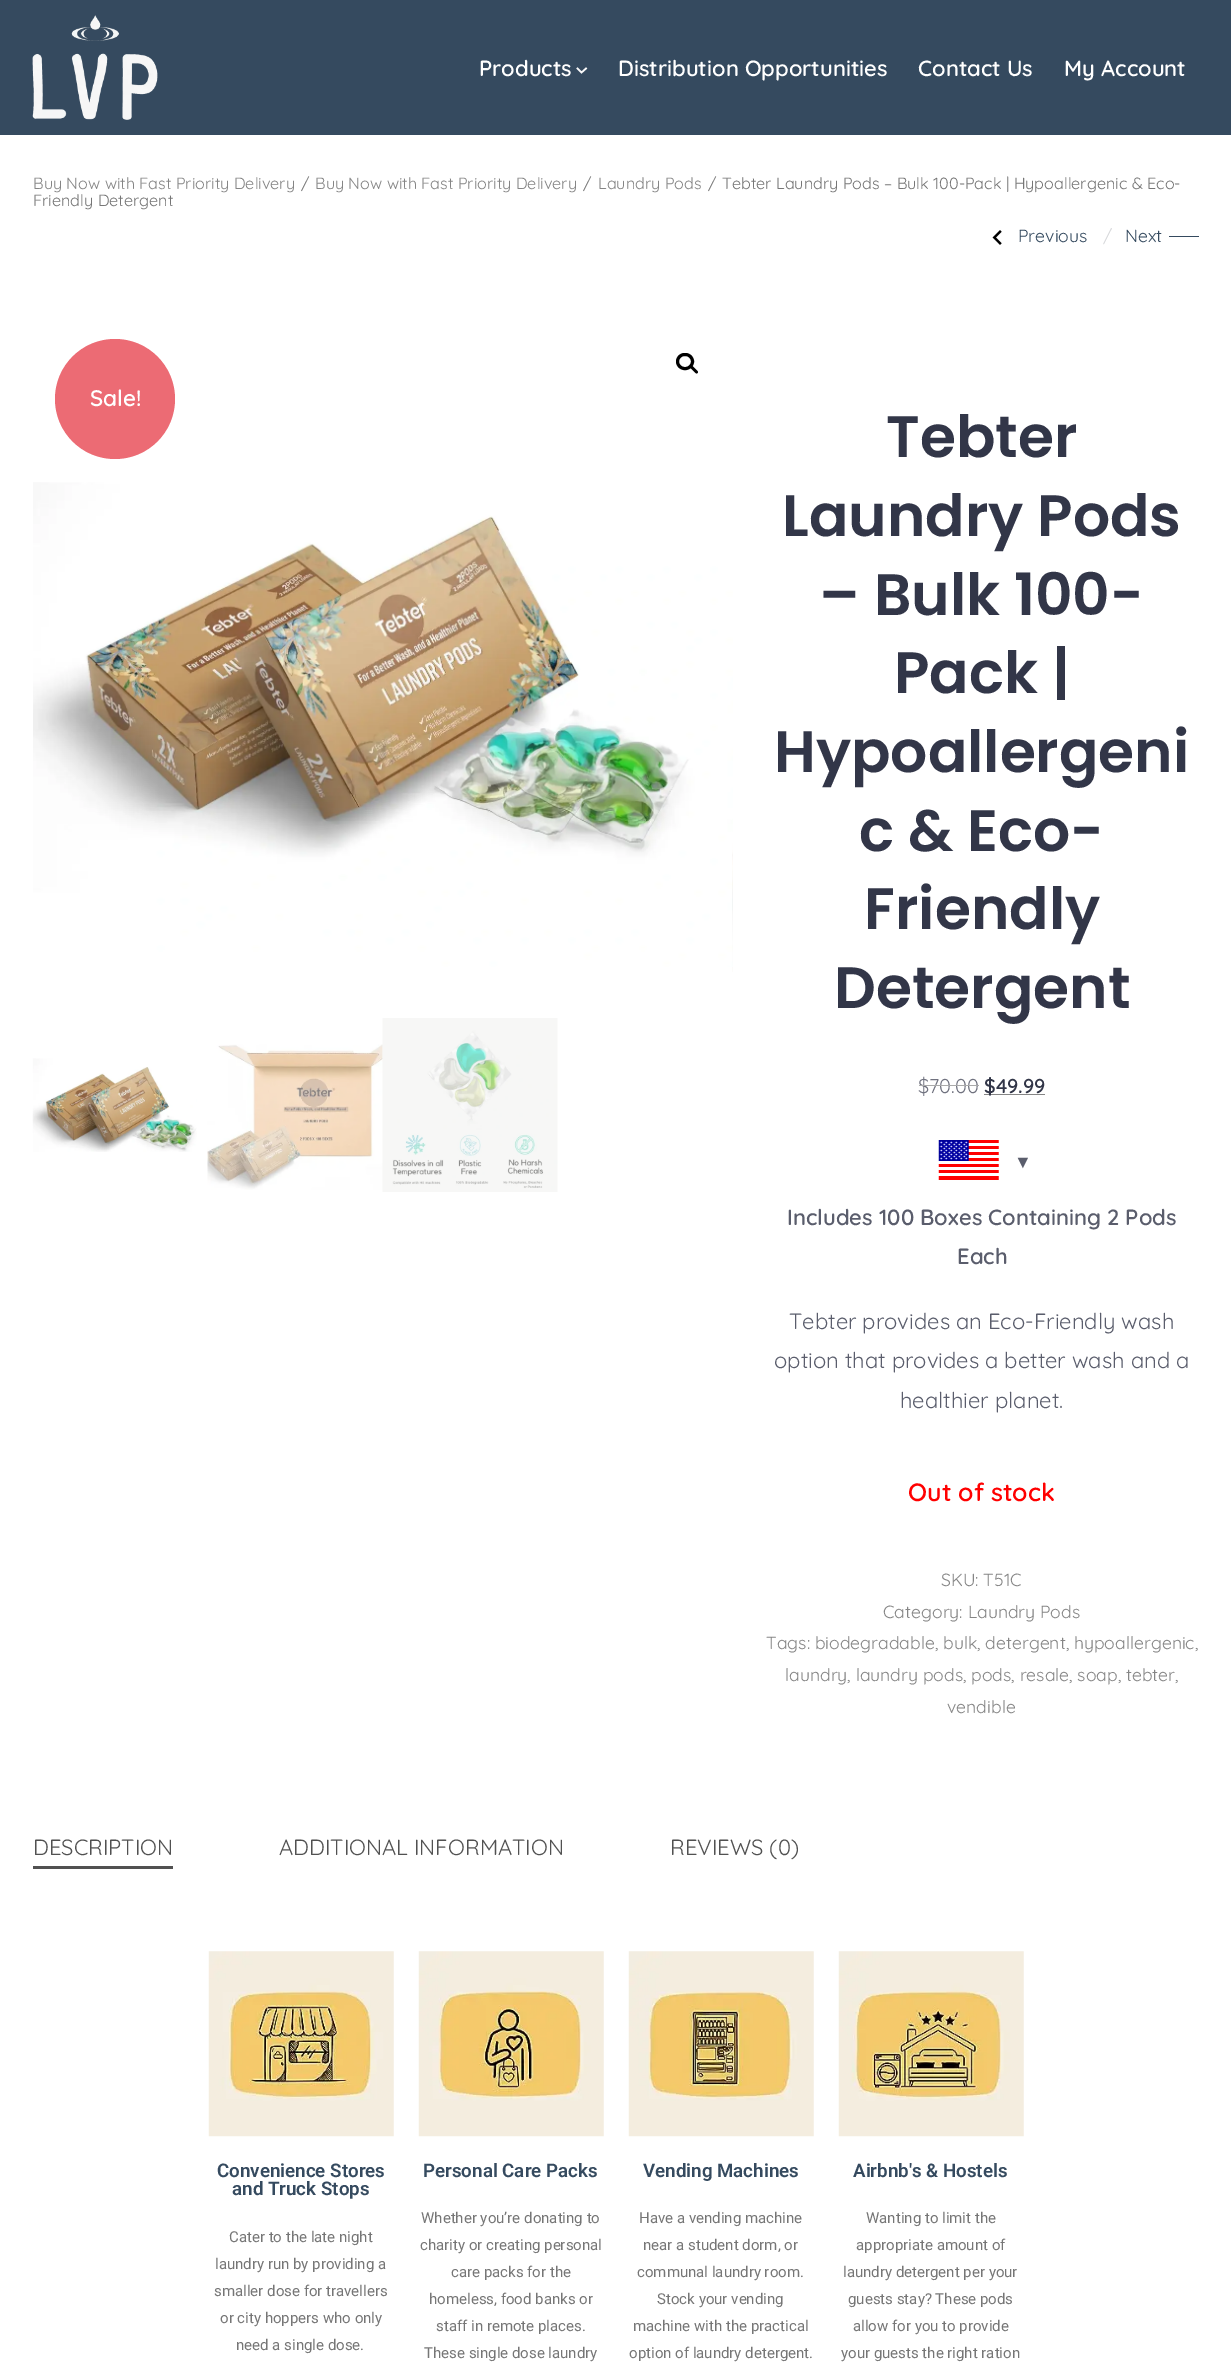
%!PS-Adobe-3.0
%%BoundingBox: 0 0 1231 2373
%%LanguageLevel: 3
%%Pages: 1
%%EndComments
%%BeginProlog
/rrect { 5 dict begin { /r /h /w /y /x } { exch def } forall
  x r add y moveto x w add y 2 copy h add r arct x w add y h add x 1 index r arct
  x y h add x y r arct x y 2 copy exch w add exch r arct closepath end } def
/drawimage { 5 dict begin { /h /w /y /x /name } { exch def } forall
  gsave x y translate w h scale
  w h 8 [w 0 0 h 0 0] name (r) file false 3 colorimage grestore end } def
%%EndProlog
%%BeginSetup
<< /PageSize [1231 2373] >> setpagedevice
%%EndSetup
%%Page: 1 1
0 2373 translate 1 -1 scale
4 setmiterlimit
1 setgray
0 0 1231 2373 rectfill
0.208 0.29 0.373 setrgbcolor
0 0 1231 135 rectfill
(images/1.raw) 32 15 126 105 drawimage
0.98 setgray
1.6 setlinewidth
2 setlinecap
newpath 577.5 68.5 moveto 581.5 72.5 lineto 586 68.5 lineto stroke
(images/2.raw) 992 230 10 15 drawimage
gsave
1169 233 30 7 rectclip
0.208 0.29 0.373 setrgbcolor
newpath 1170 236 moveto 1169 236 lineto 1169 237 lineto 1170 237 lineto closepath 1211 236 moveto 1205 233 lineto 1205 240 lineto closepath 1170 237 moveto 1206 237 lineto 1206 236 lineto 1170 236 lineto closepath fill
grestore
0 setgray
3 setlinewidth
0 setlinecap
677.5 354.5 15 14 7 rrect stroke
newpath 690.5 366 moveto 692 364.5 694 368 695 368.5 curveto 695.5 369.5 699 371.5 697.5 373 curveto 696 374.5 694 371 693 370.5 curveto 692.5 369.5 689 367.5 690.5 366 curveto closepath fill
(images/4.raw) 732 843 1 129 drawimage
(images/3.raw) 33 482 700 485 drawimage
(images/5.raw) 32 1058 165 94 drawimage
(images/6.raw) 207 1044 176 146 drawimage
(images/7.raw) 382 1018 176 174 drawimage
0.925 0.42 0.455 setrgbcolor
newpath 115 399 60 0 360 arc closepath fill
0.522 setgray
984 1094 61 1 rectfill
(images/8.raw) 938 1140 61 40 drawimage
0.318 setgray
33 1866 140 3 rectfill
(images/9.raw) 208 1951 186 186 drawimage
(images/10.raw) 418 1951 186 186 drawimage
(images/11.raw) 628 1951 186 186 drawimage
(images/12.raw) 838 1951 186 186 drawimage
/Quicksand-SemiBold [22 0 0 -22 0 0] selectfont
1 setgray
479 76 moveto (Products) show
618 76 moveto (Distribution Opportunities) show
918 76 moveto (Contact Us) show
1064 76 moveto (My Account) show
/Quicksand-Regular [16.2 0 0 -16.2 0 0] selectfont
0.522 setgray
33 189 moveto (Buy Now with Fast Priority Delivery) show
0.463 setgray
301 189 moveto (/) show
0.522 setgray
315 189 moveto (Buy Now with Fast Priority Delivery) show
0.463 setgray
583 189 moveto (/) show
0.522 setgray
598 189 moveto (Laundry Pods) show
0.463 setgray
708 189 moveto (/) show
722 189 moveto (Tebter Laundry Pods – Bulk 100-Pack | Hypoallergenic & Eco-) show
33 206 moveto (Friendly Detergent) show
/Quicksand-Regular [17.6 0 0 -17.6 0 0] selectfont
0.208 0.29 0.373 setrgbcolor
1018 242 moveto (Previous) show
0.839 0.843 0.855 setrgbcolor
1103 242 moveto (/) show
0.208 0.29 0.373 setrgbcolor
1125 242 moveto (Next) show
/Quicksand-SemiBold [22.5 0 0 -22.5 0 0] selectfont
1 setgray
90 406 moveto (Sale!) show
/Poppins-SemiBold [58.25 0 0 -58.25 0 0] selectfont
0.196 0.212 0.282 setrgbcolor
886 457 moveto (Tebter) show
782 536 moveto (Laundry Pods) show
819 615 moveto (– Bulk 100-) show
894 693 moveto (Pack |) show
774 772 moveto (Hypoallergeni) show
859 851 moveto (c & Eco-) show
864 929 moveto (Friendly) show
834 1008 moveto (Detergent) show
/Quicksand-Regular [20 0 0 -20 0 0] selectfont
0.439 0.447 0.498 setrgbcolor
918 1093 moveto ($70.00) show
0.667 setgray
919 1085 60 1 rectfill
/Quicksand-SemiBold [20 0 0 -20 0 0] selectfont
0.196 0.212 0.282 setrgbcolor
984 1093 moveto ($49.99) show
/LiberationSans-Regular [18 0 0 -18 0 0] selectfont
0.353 0.365 0.424 setrgbcolor
1014 1168 moveto (▼) show
/Quicksand-SemiBold [22 0 0 -22 0 0] selectfont
787 1225 moveto (Includes 100 Boxes Containing 2 Pods) show
957 1264 moveto (Each) show
/Quicksand-Regular [22 0 0 -22 0 0] selectfont
789 1329 moveto (Tebter provides an Eco-Friendly wash) show
774 1368 moveto (option that provides a better wash and a) show
900 1408 moveto (healthier planet.) show
/Quicksand-SemiBold [25 0 0 -25 0 0] selectfont
1 0 0 setrgbcolor
908 1501 moveto (Out of stock) show
/Quicksand-Regular [17.6 0 0 -17.6 0 0] selectfont
0.522 setgray
941 1586 moveto (SKU: T51C) show
883 1618 moveto (Category: Laundry Pods) show
766 1649 moveto (Tags: biodegradable, bulk, detergent, hypoallergenic,) show
785 1681 moveto (laundry, laundry pods, pods, resale, soap, tebter,) show
947 1713 moveto (vendible) show
/Quicksand-Regular [22 0 0 -22 0 0] selectfont
0.318 setgray
33 1855 moveto (DESCRIPTION) show
279 1855 moveto (ADDITIONAL INFORMATION) show
670 1855 moveto (REVIEWS \(0\)) show
/Roboto-SemiBold [18.75 0 0 -18.75 0 0] selectfont
0.208 0.29 0.373 setrgbcolor
217 2177 moveto (Convenience Stores) show
232 2195 moveto (and Truck Stops) show
/Roboto-Regular [15 0 0 -15 0 0] selectfont
0.463 setgray
229 2242 moveto (Cater to the late night) show
215 2269 moveto (laundry run by providing a) show
214 2296 moveto (smaller dose for travellers) show
220 2323 moveto (or city hoppers who only) show
236 2350 moveto (need a single dose.) show
/Roboto-SemiBold [18.75 0 0 -18.75 0 0] selectfont
0.208 0.29 0.373 setrgbcolor
423 2177 moveto (Personal Care Packs) show
/Roboto-Regular [15 0 0 -15 0 0] selectfont
0.463 setgray
421 2223 moveto (Whether you’re donating to) show
420 2250 moveto (charity or creating personal) show
451 2277 moveto (care packs for the) show
429 2304 moveto (homeless, food banks or) show
436 2331 moveto (staff in remote places.) show
424 2358 moveto (These single dose laundry) show
/Roboto-SemiBold [18.75 0 0 -18.75 0 0] selectfont
0.208 0.29 0.373 setrgbcolor
643 2177 moveto (Vending Machines) show
/Roboto-Regular [15 0 0 -15 0 0] selectfont
0.463 setgray
639 2223 moveto (Have a vending machine) show
643 2250 moveto (near a student dorm, or) show
637 2277 moveto (communal laundry room.) show
657 2304 moveto (Stock your vending) show
633 2331 moveto (machine with the practical) show
629 2358 moveto (option of laundry detergent.) show
/Roboto-SemiBold [18.75 0 0 -18.75 0 0] selectfont
0.208 0.29 0.373 setrgbcolor
853 2177 moveto (Airbnb's & Hostels) show
/Roboto-Regular [15 0 0 -15 0 0] selectfont
0.463 setgray
866 2223 moveto (Wanting to limit the) show
856 2250 moveto (appropriate amount of) show
843 2277 moveto (laundry detergent per your) show
848 2304 moveto (guests stay? These pods) show
853 2331 moveto (allow for you to provide) show
841 2358 moveto (your guests the right ration) show
showpage
%%EOF
